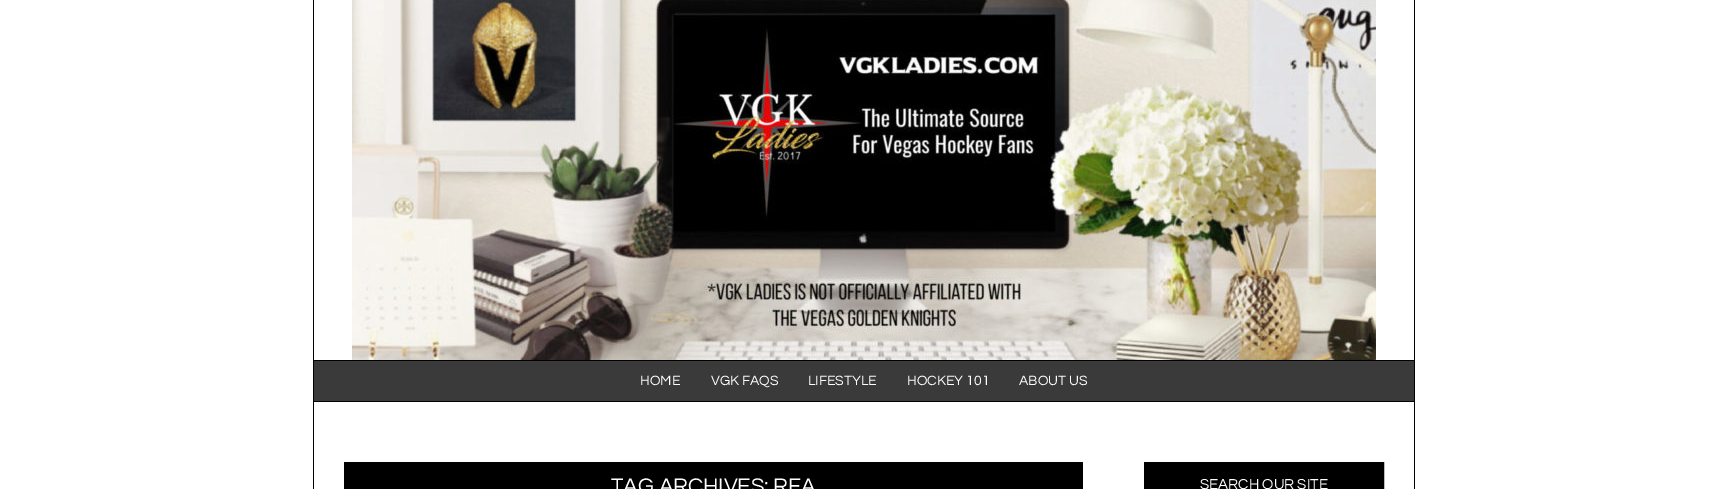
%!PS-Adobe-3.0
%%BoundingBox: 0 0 1728 489
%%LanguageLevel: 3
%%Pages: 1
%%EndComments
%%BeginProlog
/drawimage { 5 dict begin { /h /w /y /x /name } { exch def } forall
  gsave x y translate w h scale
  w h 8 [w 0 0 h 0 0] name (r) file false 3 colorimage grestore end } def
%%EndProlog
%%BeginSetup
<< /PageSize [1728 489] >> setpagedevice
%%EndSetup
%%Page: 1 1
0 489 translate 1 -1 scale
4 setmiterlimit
1 setgray
0 0 1728 489 rectfill
0 setgray
1414 0 1 489 rectfill
313 0 1 489 rectfill
(images/1.raw) 352 0 1024 360 drawimage
0.227 setgray
314 361 1100 40 rectfill
0 setgray
314 360 1100 1 rectfill
314 401 1100 1 rectfill
344 462 739 27 rectfill
1144.5 462.5 239 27 rectstroke
1145 463 238 26 rectfill
/Questrial-Regular [14 0 0 -14 0 0] selectfont
1 setgray
640 385 moveto (HOME) show
711 385 moveto (VGK FAQS) show
808 385 moveto (LIFESTYLE) show
907 385 moveto (HOCKEY 101) show
1019 385 moveto (ABOUT US) show
/Questrial-Regular [22 0 0 -22 0 0] selectfont
611 493 moveto (TAG ARCHIVES: RFA) show
/Questrial-Regular [15 0 0 -15 0 0] selectfont
1200 489 moveto (SEARCH OUR SITE) show
showpage
%%EOF
